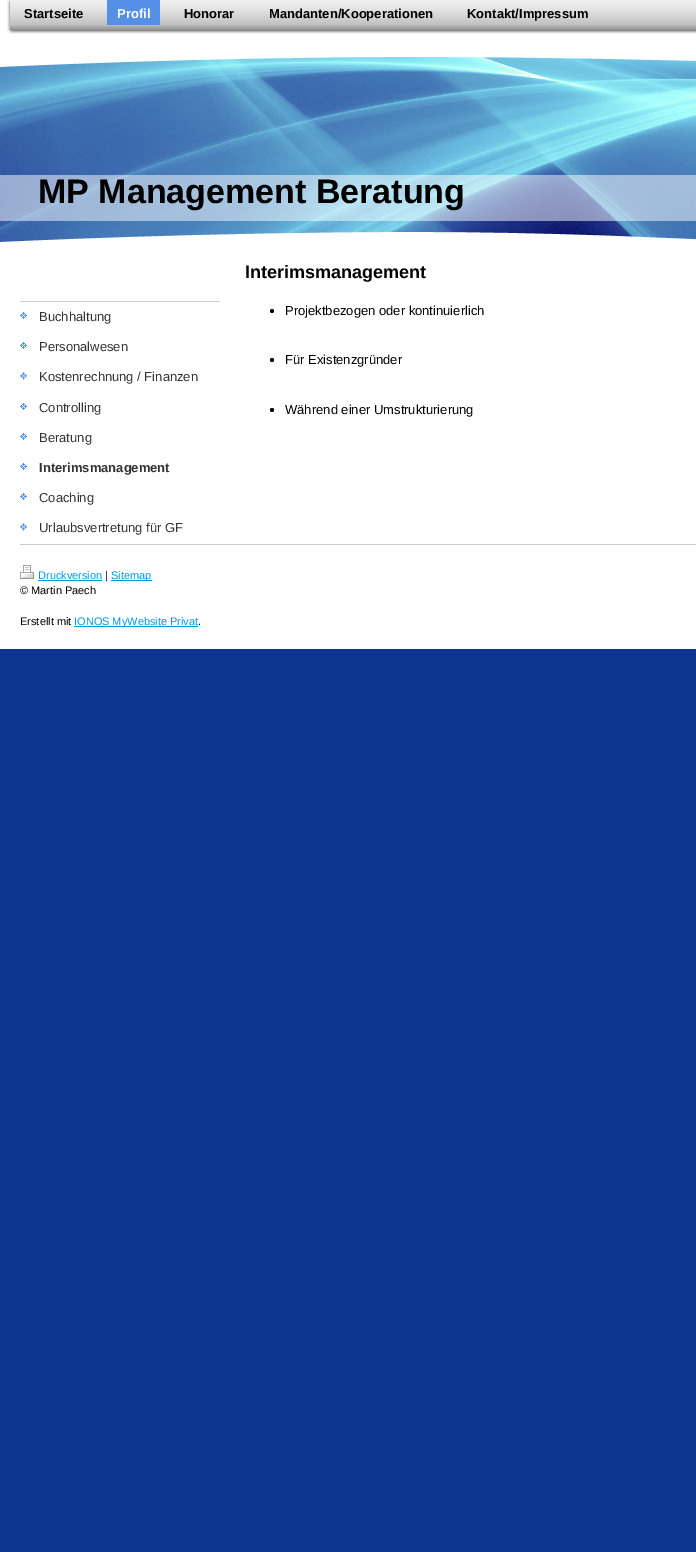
%!PS-Adobe-3.0
%%BoundingBox: 0 0 696 1552
%%LanguageLevel: 3
%%Pages: 1
%%EndComments
%%BeginProlog
/setalpha { dup .setfillconstantalpha .setstrokeconstantalpha } def
/drawimage { 5 dict begin { /h /w /y /x /name } { exch def } forall
  gsave x y translate w h scale
  w h 8 [w 0 0 h 0 0] name (r) file false 3 colorimage grestore end } def
%%EndProlog
%%BeginSetup
<< /PageSize [696 1552] /PageUsesTransparency true >> setpagedevice
%%EndSetup
%%Page: 1 1
0 .pushpdf14devicefilter
0 1552 translate 1 -1 scale
4 setmiterlimit
0.051 0.208 0.561 setrgbcolor
0 0 696 1552 rectfill
1 setgray
0 0 696 45 rectfill
(images/1.raw) 7 0 6 34 drawimage
(images/2.raw) 13 0 683 34 drawimage
0.337 0.561 0.902 setrgbcolor
107 0 53 25 rectfill
(images/4.raw) 0 57 696 185 drawimage
(images/3.raw) 0 45 696 22 drawimage
0.5 setalpha
1 setgray
0 175 696 46 rectfill
1 setalpha
(images/5.raw) 0 232 696 23 drawimage
0 255 696 394 rectfill
0.337 0.561 0.902 setrgbcolor
20 311 7 220 rectfill
0.8 setgray
20 301 200 1 rectfill
(images/6.raw) 20 302 200 30 drawimage
(images/6.raw) 20 332 200 30 drawimage
(images/7.raw) 20 362 200 31 drawimage
(images/6.raw) 20 393 200 30 drawimage
(images/6.raw) 20 423 200 30 drawimage
(images/6.raw) 20 453 200 30 drawimage
(images/6.raw) 20 483 200 30 drawimage
(images/7.raw) 20 513 200 31 drawimage
0 setgray
newpath 272 311 2 0 360 arc closepath fill
newpath 272 360 2 0 360 arc closepath fill
newpath 272 410 2 0 360 arc closepath fill
0.8 setgray
20 544 676 1 rectfill
(images/8.raw) 20 565 14 14 drawimage
0 0.6 0.882 setrgbcolor
38 580 64 1 rectfill
111 580 41 1 rectfill
74 626 124 1 rectfill
/LiberationSans-Bold [13 0 0 -13 0 0] selectfont
0 setgray
24 18 moveto (Startseite) show
1 setgray
117 18 moveto (Profil) show
0 setgray
184 18 moveto (Honorar) show
269 18 moveto (Mandanten/Kooperationen) show
467 18 moveto (Kontakt/Impressum) show
/LiberationSans-Bold [34 0 0 -34 0 0] selectfont
38 203 moveto (MP Management Beratung) show
/LiberationSans-Regular [13 0 0 -13 0 0] selectfont
0.2 setgray
39 321 moveto (Buchhaltung) show
39 351 moveto (Personalwesen) show
39 381 moveto (Kostenrechnung / Finanzen) show
39 412 moveto (Controlling) show
39 442 moveto (Beratung) show
/LiberationSans-Bold [13 0 0 -13 0 0] selectfont
39 472 moveto (Interimsmanagement) show
/LiberationSans-Regular [13 0 0 -13 0 0] selectfont
39 502 moveto (Coaching) show
39 532 moveto (Urlaubsvertretung für GF) show
/LiberationSans-Bold [18 0 0 -18 0 0] selectfont
0 setgray
245 278 moveto (Interimsmanagement) show
/LiberationSans-Regular [13 0 0 -13 0 0] selectfont
285 315 moveto (Projektbezogen oder kontinuierlich) show
285 364 moveto (Für Existenzgründer) show
285 414 moveto (Während einer Umstrukturierung) show
/LiberationSans-Regular [11 0 0 -11 0 0] selectfont
0 0.6 0.882 setrgbcolor
38 579 moveto (Druckversion) show
0 setgray
105 579 moveto (|) show
0 0.6 0.882 setrgbcolor
111 579 moveto (Sitemap) show
0 setgray
20 594 moveto (© Martin Paech) show
20 625 moveto (Erstellt mit) show
0 0.6 0.882 setrgbcolor
74 625 moveto (IONOS MyWebsite Privat) show
0 setgray
198 625 moveto (.) show
.poppdf14devicefilter showpage
%%EOF
